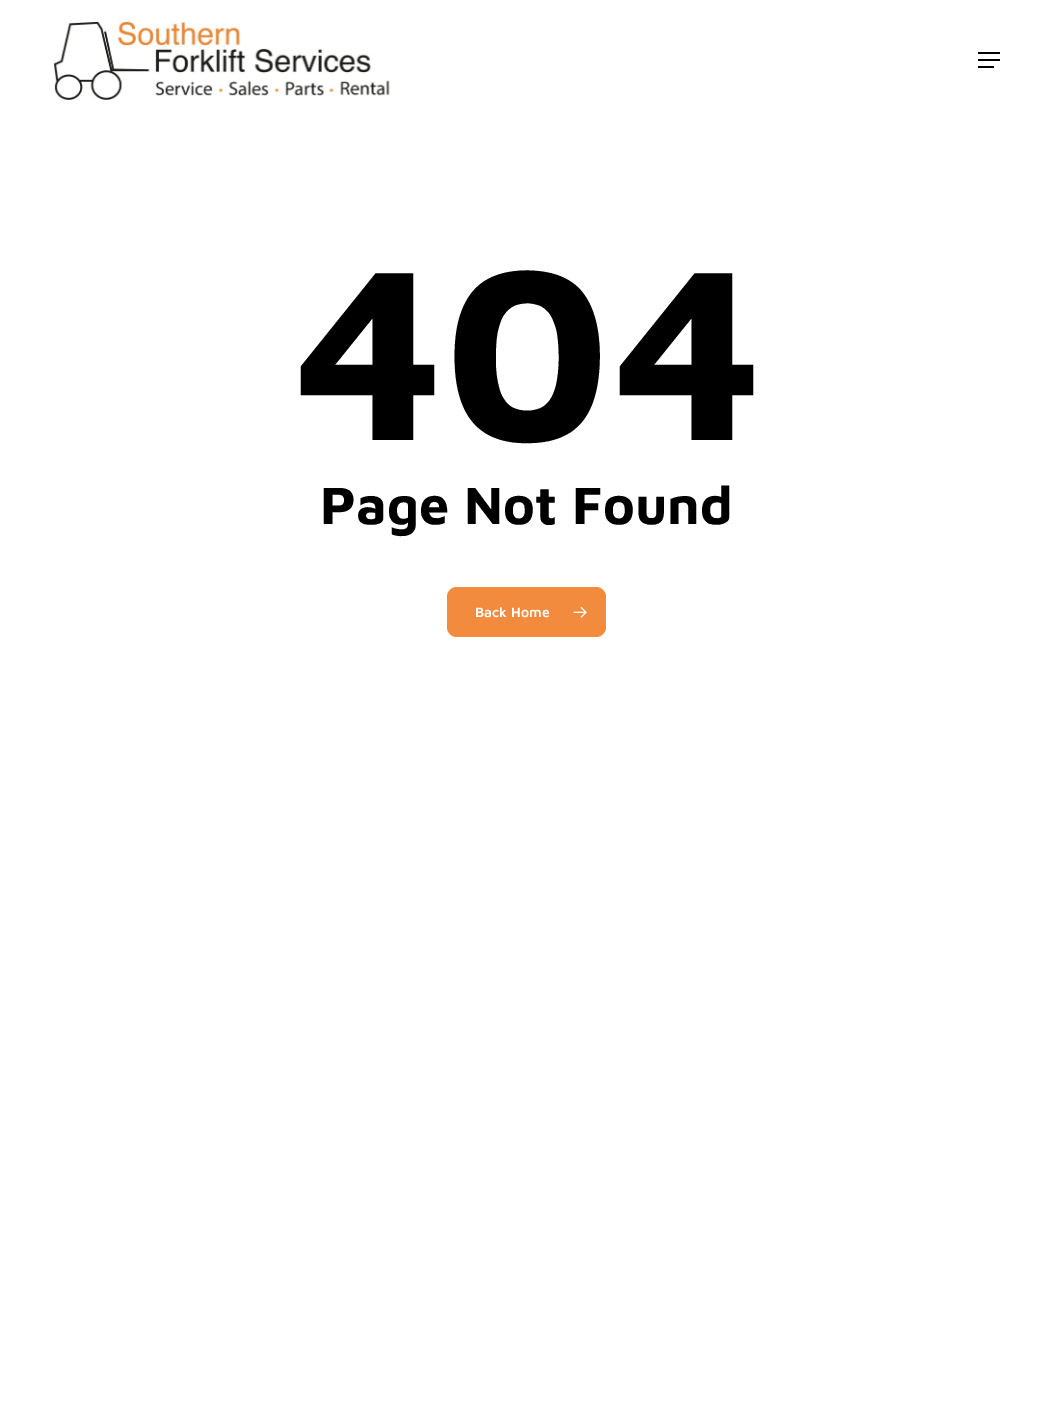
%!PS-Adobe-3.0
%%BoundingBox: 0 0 1053 1427
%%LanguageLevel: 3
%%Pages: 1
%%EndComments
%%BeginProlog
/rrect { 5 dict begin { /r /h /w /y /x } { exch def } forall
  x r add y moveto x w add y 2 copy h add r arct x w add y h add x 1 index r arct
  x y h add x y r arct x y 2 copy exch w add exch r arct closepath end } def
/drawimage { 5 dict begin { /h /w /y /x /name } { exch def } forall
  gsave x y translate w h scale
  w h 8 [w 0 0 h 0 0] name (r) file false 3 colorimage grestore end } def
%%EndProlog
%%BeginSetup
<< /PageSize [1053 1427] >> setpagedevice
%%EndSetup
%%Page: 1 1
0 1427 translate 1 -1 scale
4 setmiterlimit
1 setgray
0 0 1053 1427 rectfill
(images/1.raw) 53 20 337 80 drawimage
0 setgray
978 52 22 2 rectfill
978 66 16 2 rectfill
978 59 22 2 rectfill
0.949 0.545 0.239 setrgbcolor
447 587 159 50 10 rrect fill
(images/2.raw) 573 607 14 11 drawimage
/MavenPro-Bold [250 0 0 -250 0 0] selectfont
0 setgray
291 440 moveto (404) show
/MavenPro-Bold [54 0 0 -54 0 0] selectfont
320 524 moveto (Page Not Found) show
/MavenPro-SemiBold [14 0 0 -14 0 0] selectfont
1 setgray
475 617 moveto (Back Home) show
showpage
%%EOF
